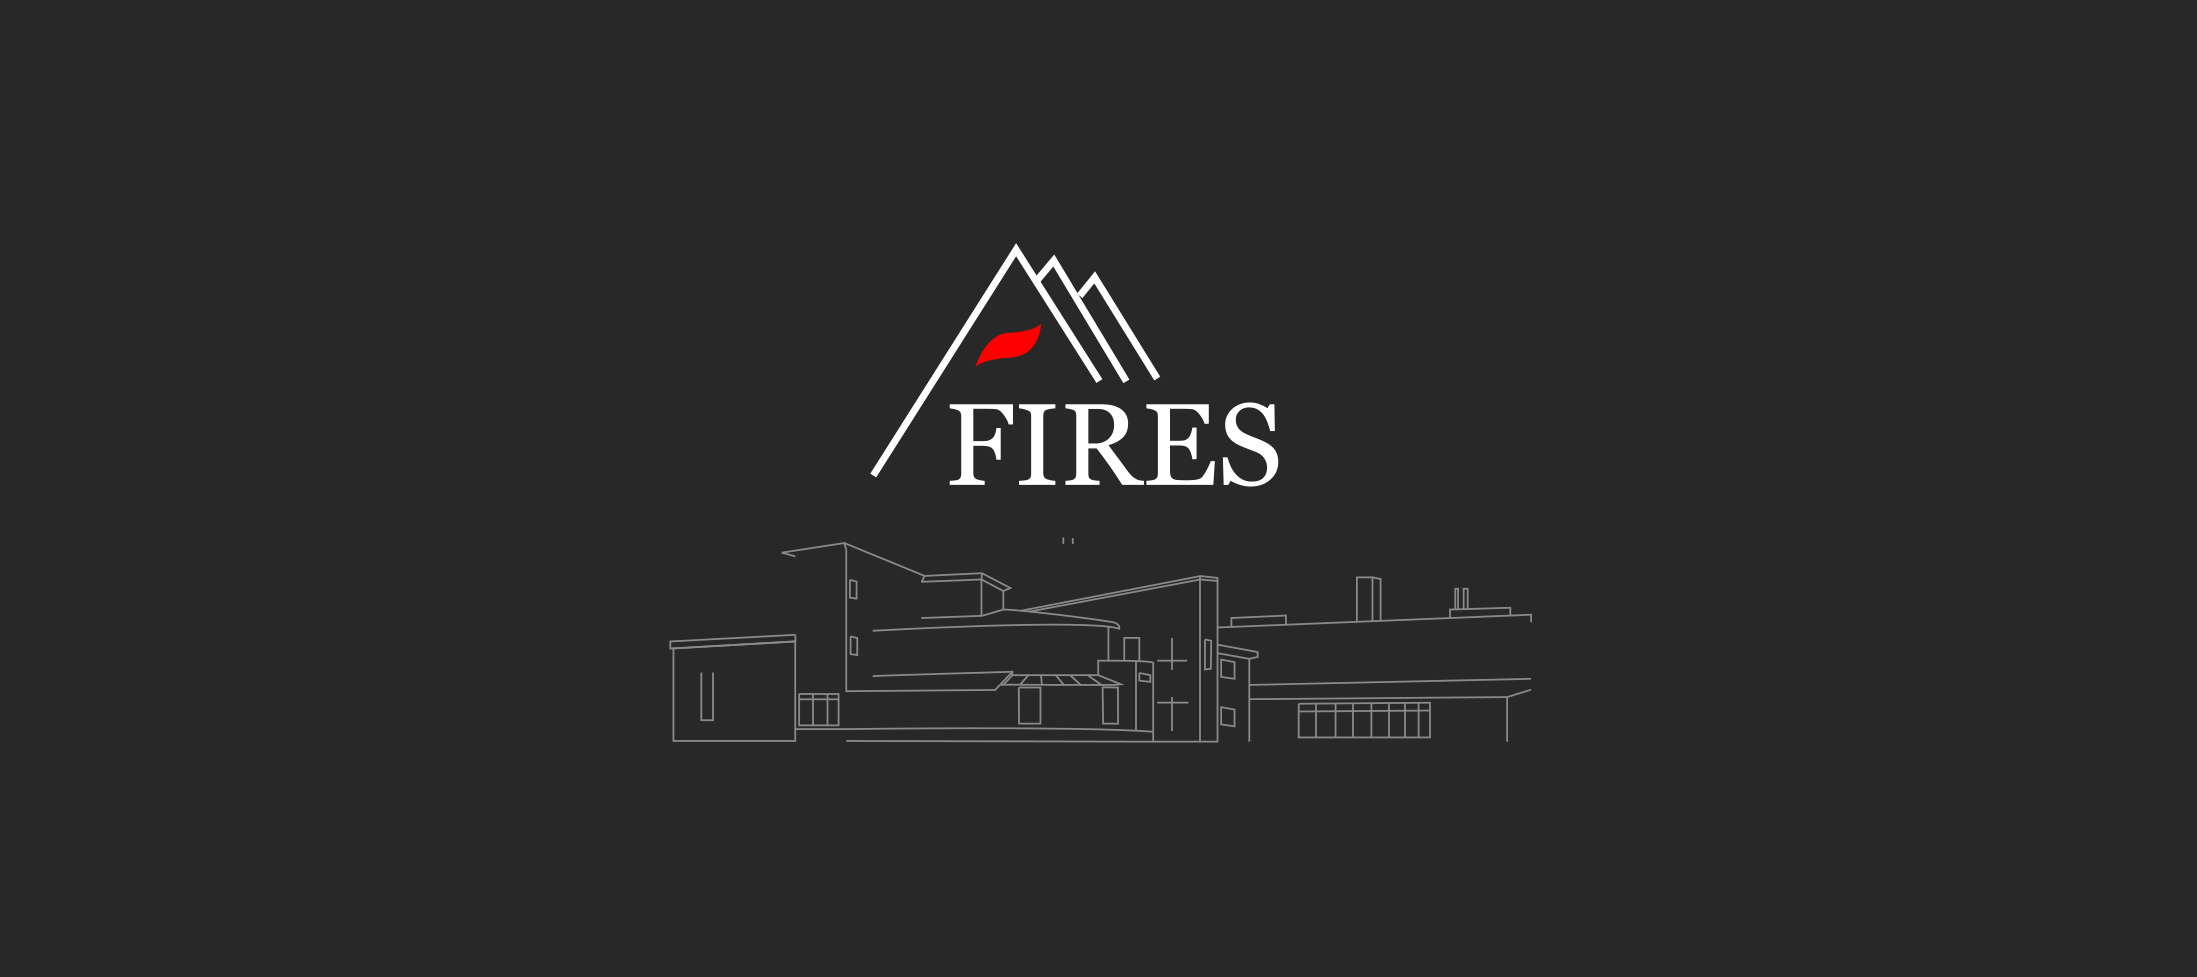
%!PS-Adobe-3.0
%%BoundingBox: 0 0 2197 977
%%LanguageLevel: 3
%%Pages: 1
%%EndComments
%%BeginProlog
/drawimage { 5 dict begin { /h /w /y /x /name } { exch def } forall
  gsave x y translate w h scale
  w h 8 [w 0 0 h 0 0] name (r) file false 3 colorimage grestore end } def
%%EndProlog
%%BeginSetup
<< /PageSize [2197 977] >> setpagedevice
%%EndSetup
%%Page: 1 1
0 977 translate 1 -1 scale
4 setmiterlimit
0.157 setgray
0 0 2197 977 rectfill
(images/1.raw) 669 243 863 500 drawimage
showpage
%%EOF
